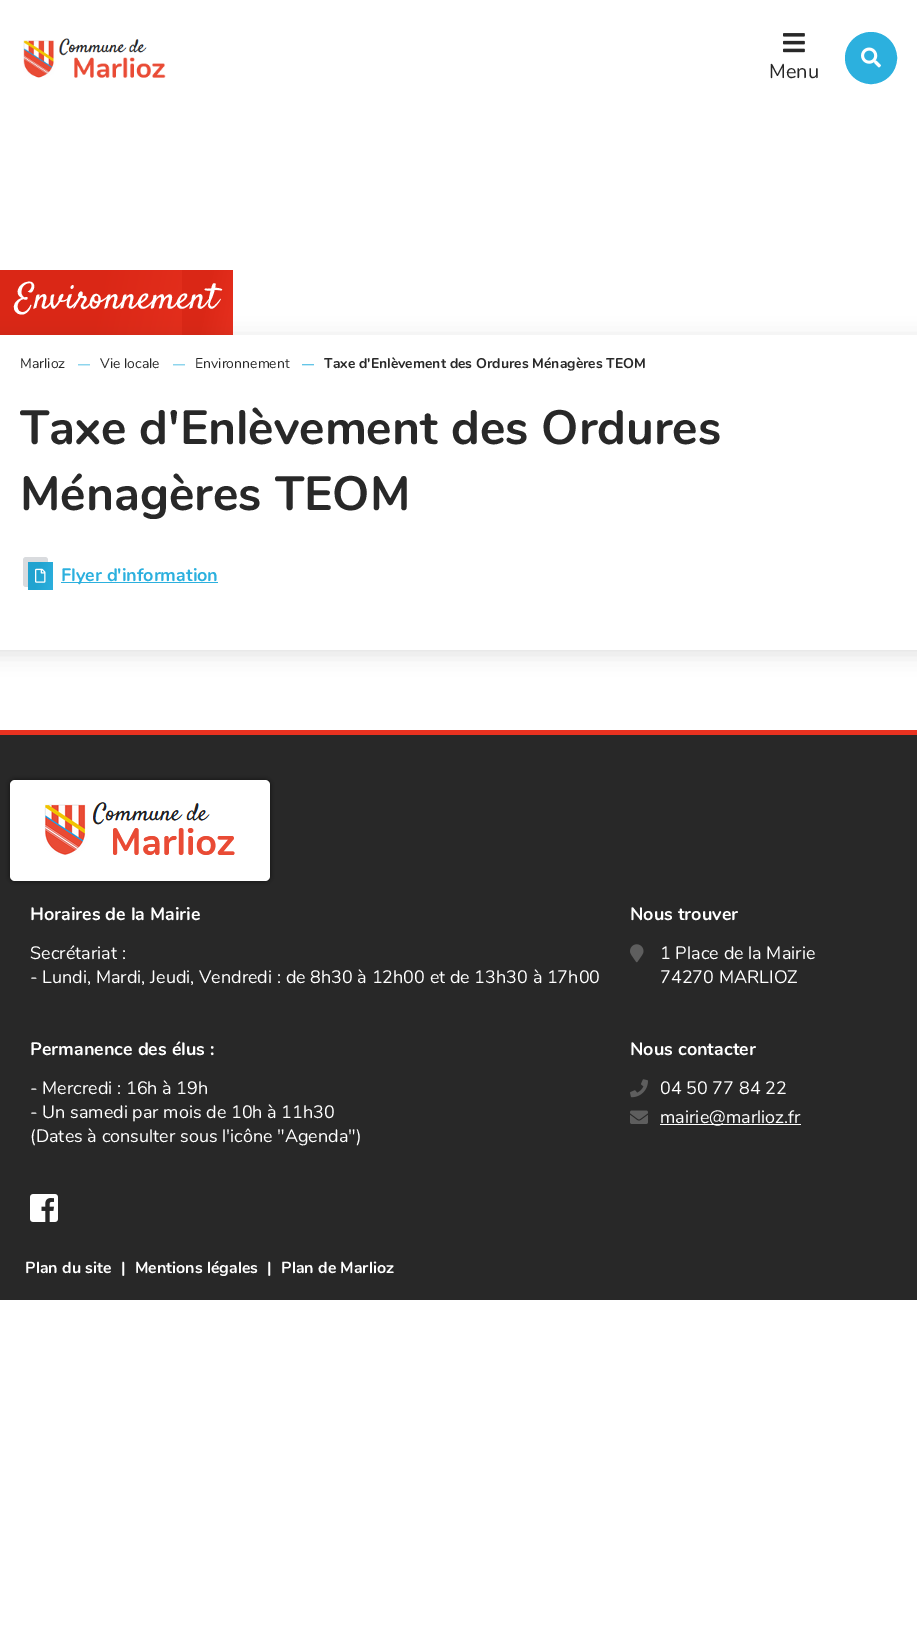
%!PS-Adobe-3.0
%%BoundingBox: 0 0 917 1626
%%LanguageLevel: 3
%%Pages: 1
%%EndComments
%%BeginProlog
/setalpha { dup .setfillconstantalpha .setstrokeconstantalpha } def
/rrect { 5 dict begin { /r /h /w /y /x } { exch def } forall
  x r add y moveto x w add y 2 copy h add r arct x w add y h add x 1 index r arct
  x y h add x y r arct x y 2 copy exch w add exch r arct closepath end } def
/softshadow { 12 dict begin { /a /b /q /h /w /y /x } { exch def } forall gsave /was 0 def
  9 -2 -9 { dup b mul 4 div /e exch def 1 sub .425 mul 2.718 exch exp 1 add a .99 .min exch div /now exch def
    1 1 now sub 1 was sub div sub setalpha /was now def
    w h .min e 2 mul add 0 gt { x e sub y e sub w e 2 mul add h e 2 mul add
      q e add b .6 mul add w h .min 2 div e add .min 0 .max rrect fill } if } for grestore end } def
/drawimage { 5 dict begin { /h /w /y /x /name } { exch def } forall
  gsave x y translate w h scale
  w h 8 [w 0 0 h 0 0] name (r) file false 3 colorimage grestore end } def
%%EndProlog
%%BeginSetup
<< /PageSize [917 1626] /PageUsesTransparency true >> setpagedevice
%%EndSetup
%%Page: 1 1
0 .pushpdf14devicefilter
0 1626 translate 1 -1 scale
4 setmiterlimit
1 setgray
0 0 917 1626 rectfill
(images/1.raw) 23 38 143 40 drawimage
(images/2.raw) 783 33 22 20 drawimage
0.173 0.69 0.871 setrgbcolor
newpath 871 58 25 0 360 arc closepath gsave fill grestore
2 setlinewidth
stroke
(images/3.raw) 861 47 20 21 drawimage
gsave newpath 0 270 moveto 182 270 lineto 182 335 lineto 0 335 lineto closepath clip newpath
<< /ShadingType 2 /ColorSpace /DeviceRGB /Coords [-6.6 302 243 354] /Extend [true true] /Function << /FunctionType 3 /Domain [0 1] /Functions [<< /FunctionType 2 /Domain [0 1] /C0 [0.855 0.153 0.086] /C1 [0.855 0.153 0.086] /N 1 >> << /FunctionType 2 /Domain [0 1] /C0 [0.855 0.153 0.086] /C1 [0.914 0.196 0.125] /N 1 >>] /Bounds [0.36] /Encode [0 1 0 1] >> >> shfill grestore
gsave newpath 182 270 moveto 233 270 lineto 233 335 lineto 182 335 lineto closepath clip newpath
<< /ShadingType 2 /ColorSpace /DeviceRGB /Coords [172 320 244 335] /Extend [true true] /Function << /FunctionType 3 /Domain [0 1] /Functions [<< /FunctionType 2 /Domain [0 1] /C0 [0.855 0.153 0.086] /C1 [0.855 0.153 0.086] /N 1 >> << /FunctionType 2 /Domain [0 1] /C0 [0.855 0.153 0.086] /C1 [0.914 0.196 0.125] /N 1 >>] /Bounds [0.36] /Encode [0 1 0 1] >> >> shfill grestore
0.157 setgray
-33 339 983 315 3 10 0.15 softshadow
1 setgray
0 335 917 315 rectfill
0.851 0.859 0.871 setrgbcolor
23 557 25 30 3 rrect fill
gsave 28 562 25 28 3 rrect clip newpath
<< /ShadingType 2 /ColorSpace /DeviceRGB /Coords [26 573 56 579] /Extend [true true] /Function << /FunctionType 3 /Domain [0 1] /Functions [<< /FunctionType 2 /Domain [0 1] /C0 [0.129 0.639 0.816] /C1 [0.129 0.639 0.816] /N 1 >> << /FunctionType 2 /Domain [0 1] /C0 [0.129 0.639 0.816] /C1 [0.173 0.69 0.871] /N 1 >>] /Bounds [0.36] /Encode [0 1 0 1] >> >> shfill grestore
(images/4.raw) 35 568 11 15 drawimage
0.173 0.69 0.871 setrgbcolor
61 582 157 1 rectfill
0.157 setgray
0 735 917 565 rectfill
0.914 0.196 0.125 setrgbcolor
0 730 917 5 rectfill
0 setgray
10 780 260 101 5 2.5 0.5 softshadow
1 setgray
10 780 260 101 5 rrect fill
(images/5.raw) 44 802 191 53 drawimage
(images/6.raw) 30 1194 28 28 drawimage
(images/7.raw) 630 944 14 19 drawimage
(images/8.raw) 630 1079 18 19 drawimage
(images/9.raw) 630 1110 18 14 drawimage
660 1124 141 1 rectfill
/Nunito-Regular [20 0 0 -20 0 0] selectfont
0.157 setgray
769 78 moveto (Menu) show
/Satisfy-Regular [36 0 0 -36 0 0] selectfont
1 setgray
15 308 moveto (Environnement) show
/Nunito-Regular [14 0 0 -14 0 0] selectfont
0.157 setgray
20 368 moveto (Marlioz) show
/LiberationSans-Regular [12 0 0 -12 0 0] selectfont
0.173 0.69 0.871 setrgbcolor
78 368 moveto (―) show
/Nunito-Regular [14 0 0 -14 0 0] selectfont
0.157 setgray
100 368 moveto (Vie locale) show
/LiberationSans-Regular [12 0 0 -12 0 0] selectfont
0.173 0.69 0.871 setrgbcolor
173 368 moveto (―) show
/Nunito-Regular [14 0 0 -14 0 0] selectfont
0.157 setgray
195 368 moveto (Environnement) show
/LiberationSans-Bold [12 0 0 -12 0 0] selectfont
0.173 0.69 0.871 setrgbcolor
302 368 moveto (―) show
/Nunito-Bold [14 0 0 -14 0 0] selectfont
0.157 setgray
324 368 moveto (Taxe d'Enlèvement des Ordures Ménagères TEOM) show
/Nunito-Bold [48 0 0 -48 0 0] selectfont
20 444 moveto (Taxe d'Enlèvement des Ordures) show
20 510 moveto (Ménagères TEOM) show
/Nunito-Bold [18 0 0 -18 0 0] selectfont
0.173 0.69 0.871 setrgbcolor
61 581 moveto (Flyer d'information) show
1 setgray
30 920 moveto (Horaires de la Mairie) show
/Nunito-Regular [18 0 0 -18 0 0] selectfont
30 959 moveto (Secrétariat :) show
30 983 moveto (- Lundi, Mardi, Jeudi, Vendredi : de 8h30 à 12h00 et de 13h30 à 17h00) show
/Nunito-Bold [18 0 0 -18 0 0] selectfont
30 1055 moveto (Permanence des élus :) show
/Nunito-Regular [18 0 0 -18 0 0] selectfont
30 1094 moveto (- Mercredi : 16h à 19h) show
30 1118 moveto (- Un samedi par mois de 10h à 11h30) show
30 1142 moveto (\(Dates à consulter sous l'icône "Agenda"\)) show
/Nunito-Bold [18 0 0 -18 0 0] selectfont
630 920 moveto (Nous trouver) show
/Nunito-Regular [18 0 0 -18 0 0] selectfont
660 959 moveto (1 Place de la Mairie) show
660 983 moveto (74270 MARLIOZ) show
/Nunito-Bold [18 0 0 -18 0 0] selectfont
630 1055 moveto (Nous contacter) show
/Nunito-Regular [18 0 0 -18 0 0] selectfont
660 1094 moveto (04 50 77 84 22) show
660 1123 moveto (mairie@marlioz.fr) show
/Nunito-Bold [16 0 0 -16 0 0] selectfont
25 1273 moveto (Plan du site) show
121 1273 moveto (|) show
135 1273 moveto (Mentions légales) show
267 1273 moveto (|) show
281 1273 moveto (Plan de Marlioz) show
.poppdf14devicefilter showpage
%%EOF
